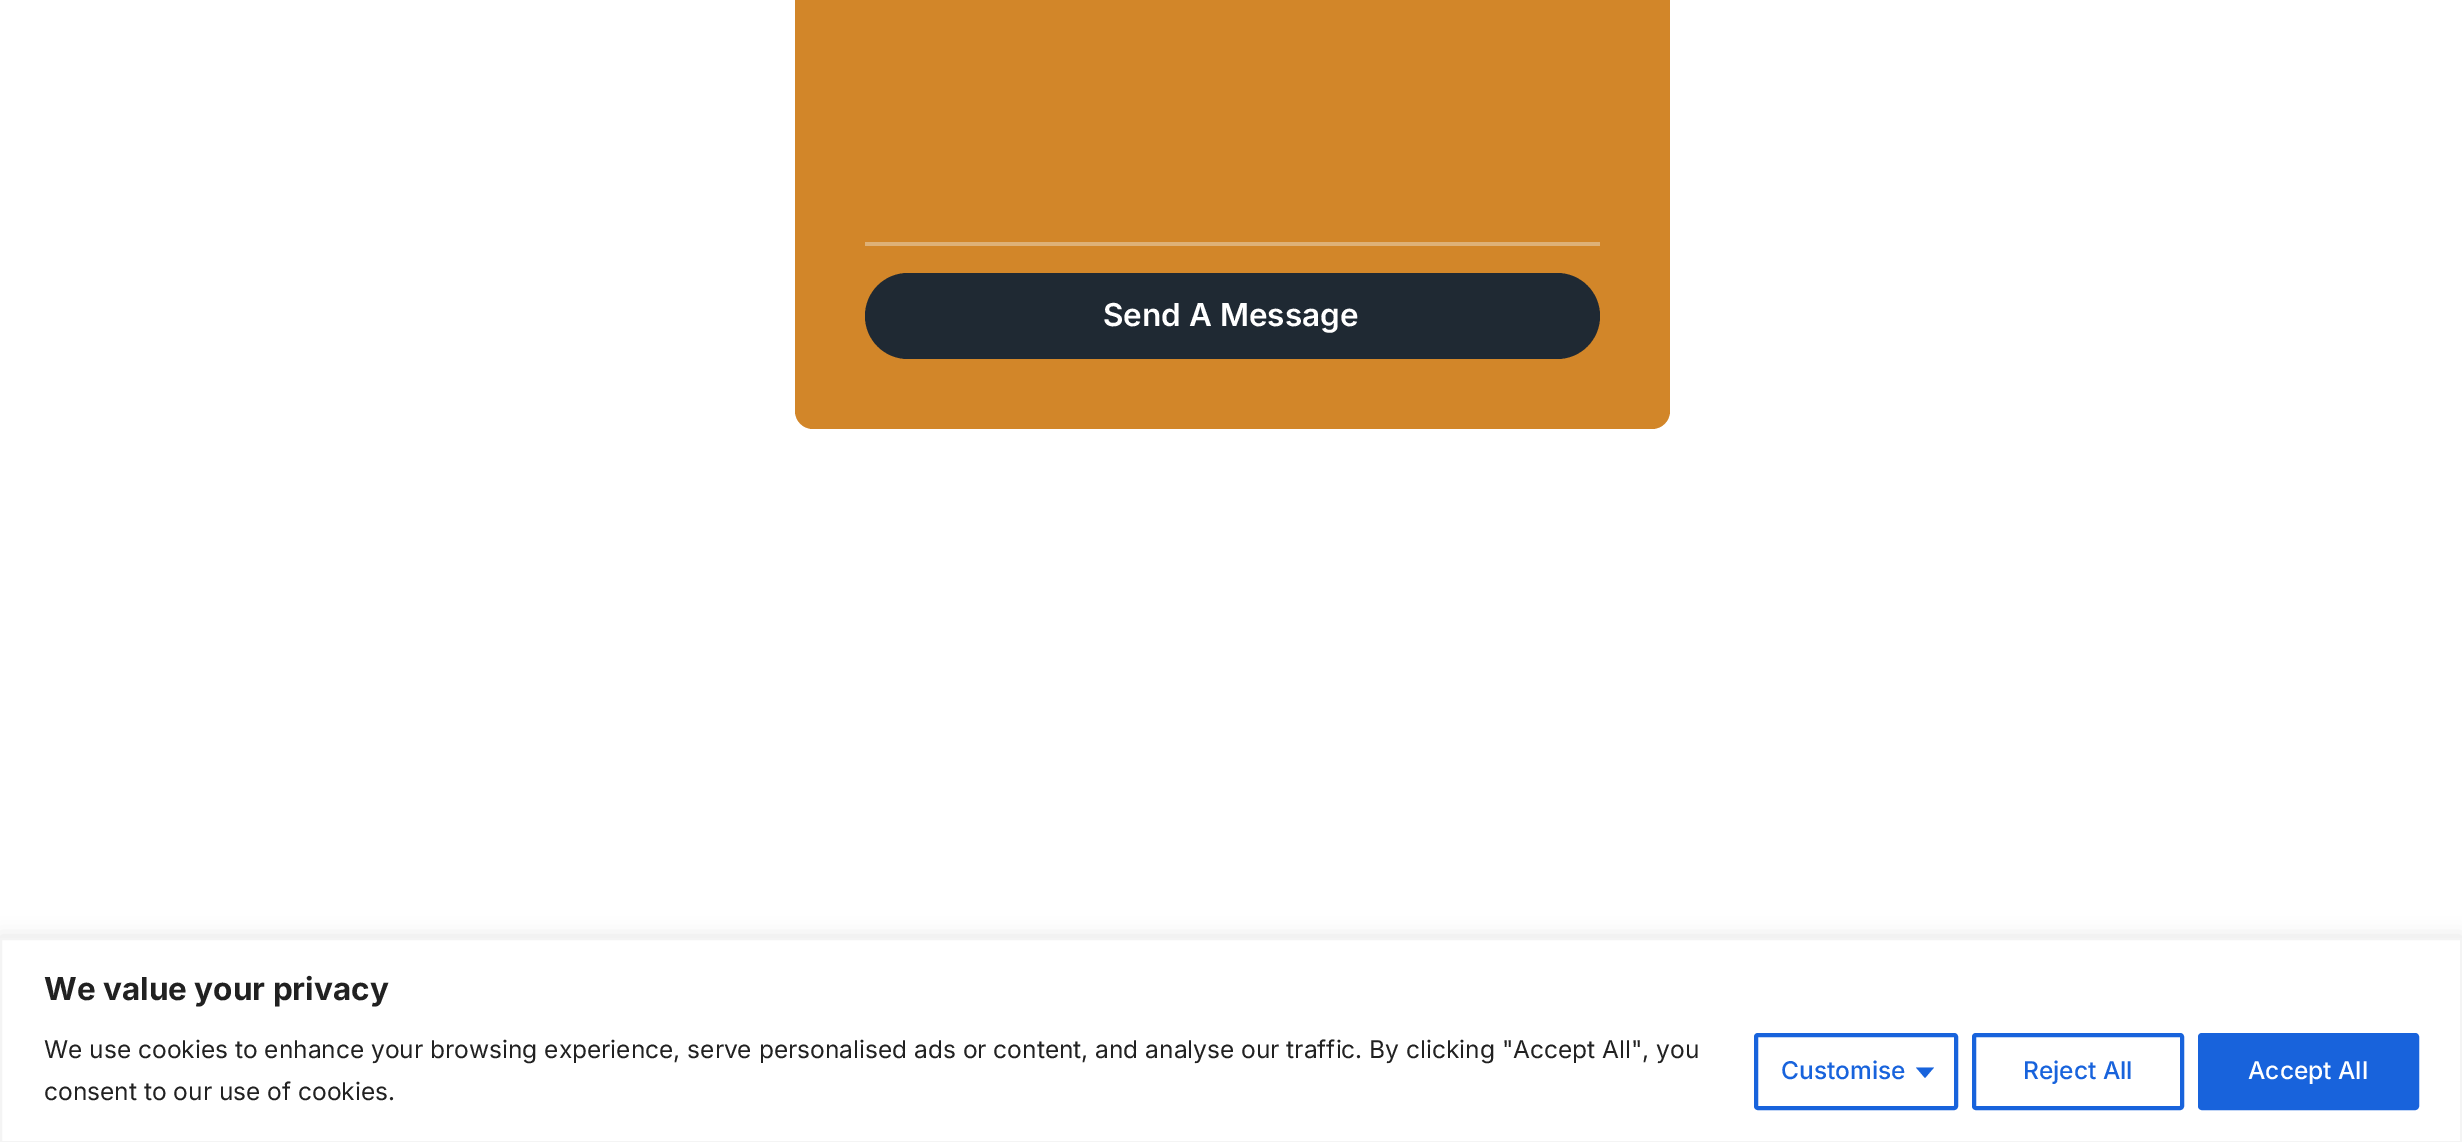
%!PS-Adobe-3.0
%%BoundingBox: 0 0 2462 1142
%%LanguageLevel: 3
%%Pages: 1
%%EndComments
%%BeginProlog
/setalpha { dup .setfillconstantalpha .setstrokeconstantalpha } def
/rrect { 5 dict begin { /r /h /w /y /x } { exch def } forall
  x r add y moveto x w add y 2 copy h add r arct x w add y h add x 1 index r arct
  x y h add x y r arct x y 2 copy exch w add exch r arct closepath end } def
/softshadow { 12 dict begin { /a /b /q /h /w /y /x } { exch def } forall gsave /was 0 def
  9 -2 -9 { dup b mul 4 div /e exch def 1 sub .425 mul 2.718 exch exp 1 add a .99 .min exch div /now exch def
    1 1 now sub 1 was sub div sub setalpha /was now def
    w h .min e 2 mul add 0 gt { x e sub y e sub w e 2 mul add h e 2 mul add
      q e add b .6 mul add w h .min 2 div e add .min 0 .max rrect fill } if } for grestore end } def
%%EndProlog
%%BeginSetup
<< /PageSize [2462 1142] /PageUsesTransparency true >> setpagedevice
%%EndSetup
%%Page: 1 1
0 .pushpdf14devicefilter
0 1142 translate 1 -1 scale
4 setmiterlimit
1 setgray
0 0 2462 1142 rectfill
0.824 0.525 0.161 setrgbcolor
795 -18 875 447 18 rrect fill
0.871 0.694 0.467 setrgbcolor
865 242 735 4 rectfill
0.122 0.161 0.2 setrgbcolor
865 273 735 86 43 rrect fill
0.675 0.671 0.671 setrgbcolor
0 936 2462 205 0 9 0.3 softshadow
1 setgray
newpath 1 939 moveto 2461 939 lineto 2461 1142 lineto 1 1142 lineto closepath gsave fill grestore
0.957 setgray
2 setlinewidth
stroke
0.094 0.388 0.863 setrgbcolor
4 setlinewidth
1756 1035 200 73 2 rrect stroke
newpath 1916 1067.5 moveto 1934 1067.5 lineto 1925 1078 lineto closepath fill
1974 1035 208 73 2 rrect stroke
2200 1035 217 73 2 rrect gsave fill grestore
stroke
/Inter-SemiBold [31.5 0 0 -31.5 0 0] selectfont
1 setgray
1103 326 moveto (Send A Message) show
/Inter-Bold [31.5 0 0 -31.5 0 0] selectfont
0.129 setgray
44 1000 moveto (We value your privacy) show
/Inter-Regular [24.5 0 0 -24.5 0 0] selectfont
44 1058 moveto (We use cookies to enhance your browsing experience, serve personalised ads or content, and analyse our traffic. By clicking "Accept All", you) show
44 1100 moveto (consent to our use of cookies.) show
/Inter-Medium [24.5 0 0 -24.5 0 0] selectfont
0.094 0.388 0.863 setrgbcolor
1781 1079 moveto (Customise) show
2023 1079 moveto (Reject All) show
1 setgray
2248 1079 moveto (Accept All) show
.poppdf14devicefilter showpage
%%EOF
